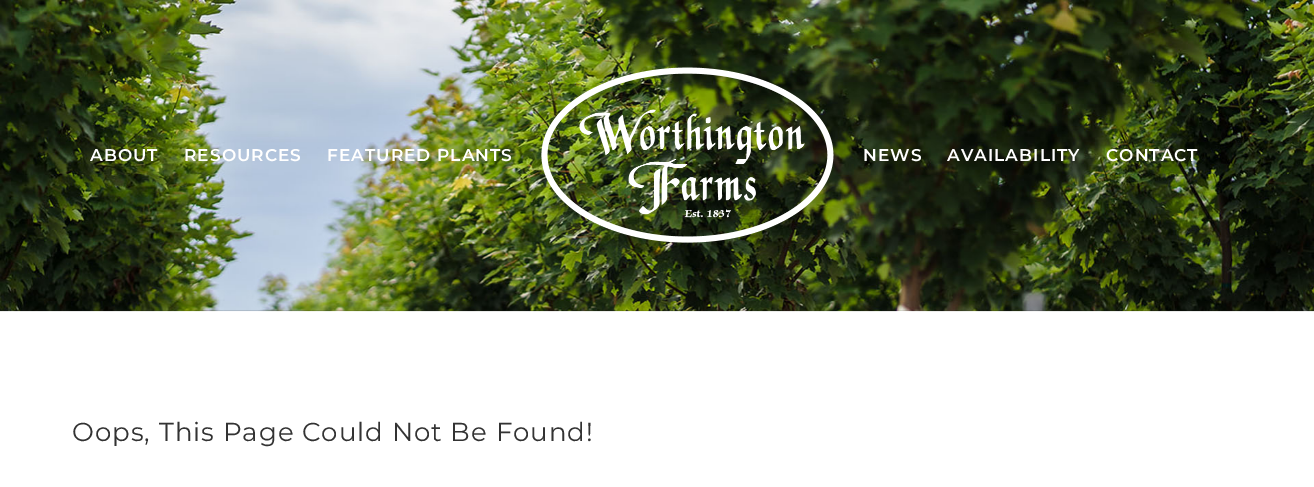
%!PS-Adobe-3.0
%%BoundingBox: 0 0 1314 487
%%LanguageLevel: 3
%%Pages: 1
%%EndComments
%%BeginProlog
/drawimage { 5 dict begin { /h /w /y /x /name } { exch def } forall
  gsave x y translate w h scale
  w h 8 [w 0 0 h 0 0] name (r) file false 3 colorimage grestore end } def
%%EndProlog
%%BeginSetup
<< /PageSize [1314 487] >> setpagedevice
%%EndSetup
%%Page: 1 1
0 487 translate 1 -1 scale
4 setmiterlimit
1 setgray
0 0 1314 487 rectfill
(images/1.raw) 0 0 1314 312 drawimage
(images/2.raw) 541 67 293 176 drawimage
/Montserrat-SemiBold [17 0 0 -17 0 0] selectfont
90 161 moveto 1 0 (ABOUT) ashow
184 161 moveto 1 0 (RESOURCES) ashow
327 161 moveto 1 0 (FEATURED PLANTS) ashow
863 161 moveto 1 0 (NEWS) ashow
947 161 moveto 1 0 (AVAILABILITY) ashow
1106 161 moveto 1 0 (CONTACT) ashow
/Montserrat-Regular [26 0 0 -26 0 0] selectfont
0.2 setgray
72 441 moveto 1 0 (Oops, This Page Could Not Be Found!) ashow
showpage
%%EOF
